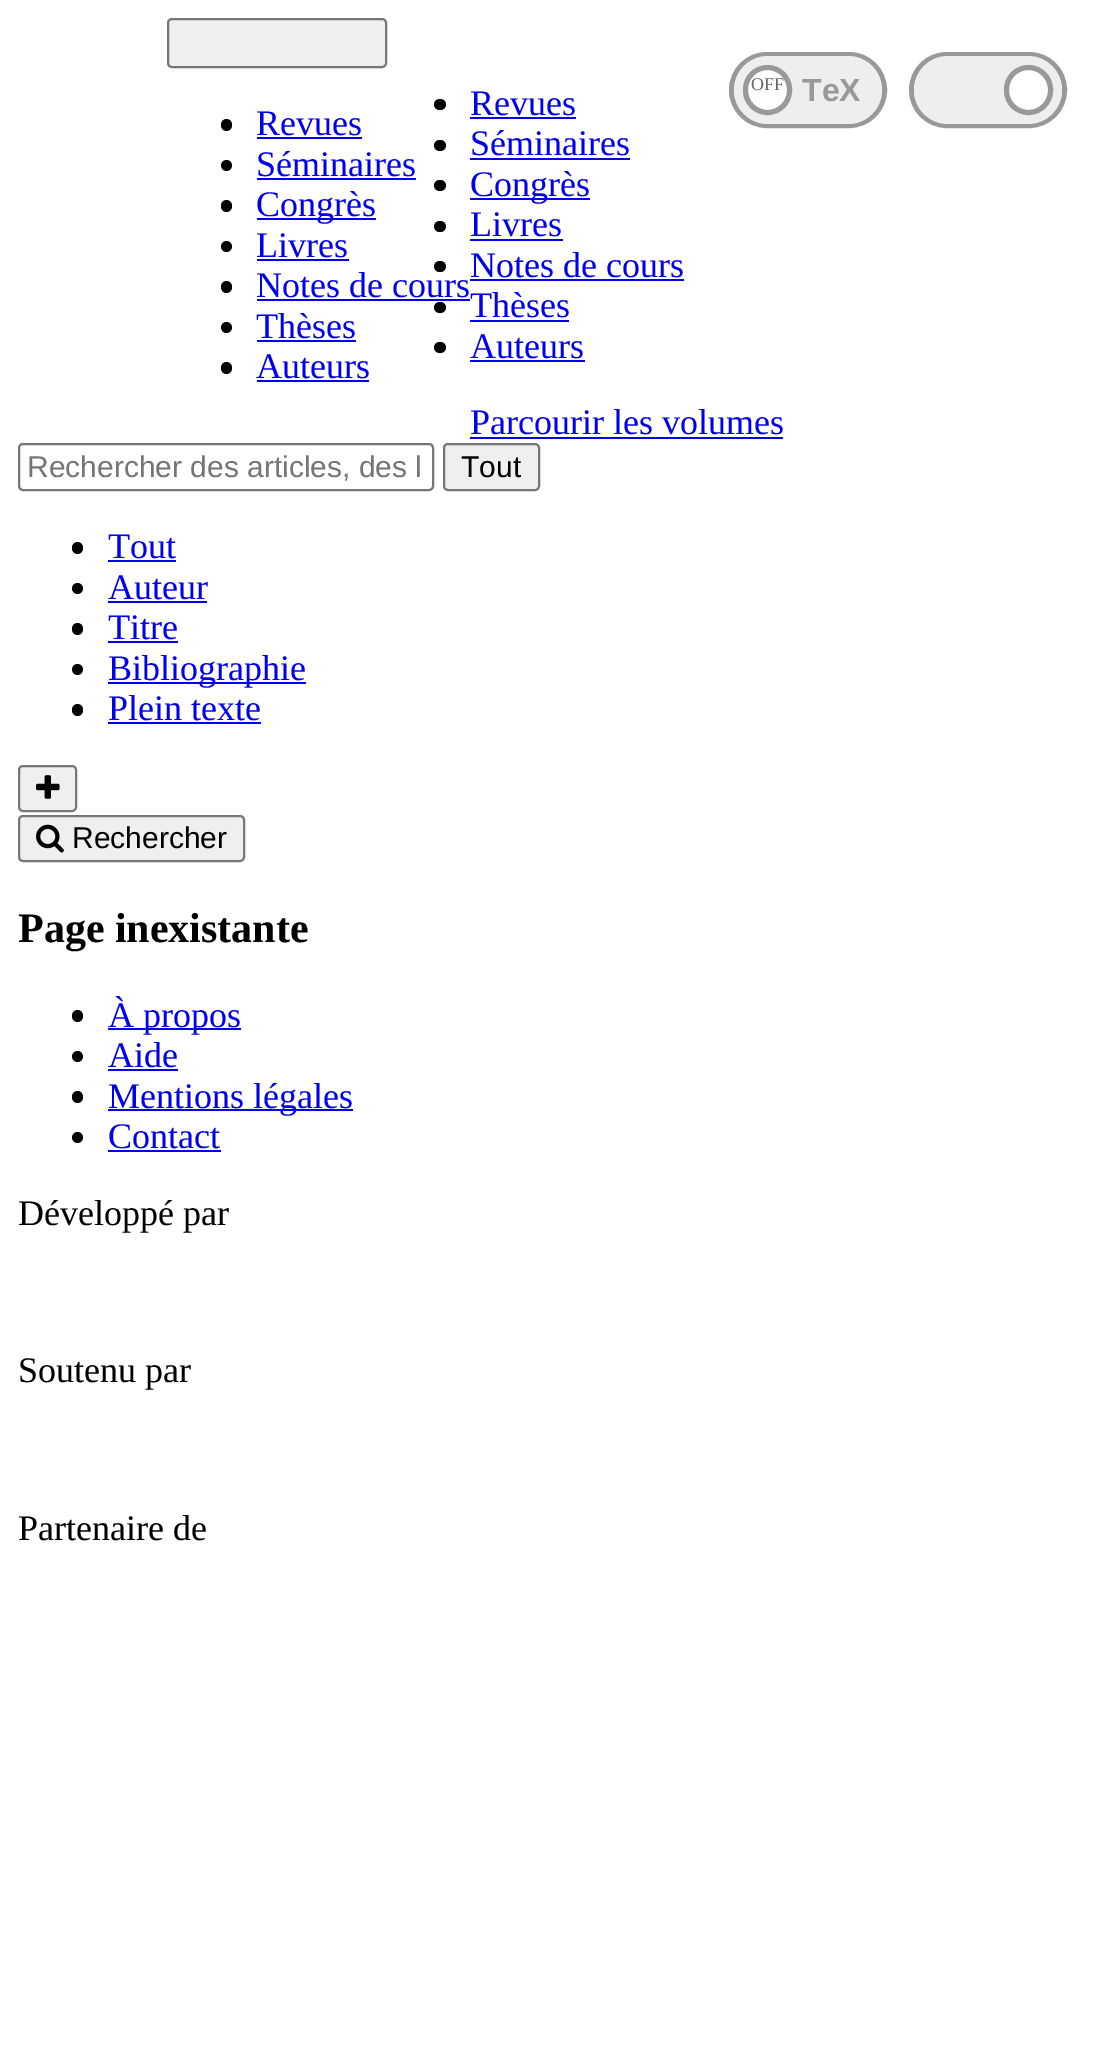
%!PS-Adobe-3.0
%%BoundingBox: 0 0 1106 2068
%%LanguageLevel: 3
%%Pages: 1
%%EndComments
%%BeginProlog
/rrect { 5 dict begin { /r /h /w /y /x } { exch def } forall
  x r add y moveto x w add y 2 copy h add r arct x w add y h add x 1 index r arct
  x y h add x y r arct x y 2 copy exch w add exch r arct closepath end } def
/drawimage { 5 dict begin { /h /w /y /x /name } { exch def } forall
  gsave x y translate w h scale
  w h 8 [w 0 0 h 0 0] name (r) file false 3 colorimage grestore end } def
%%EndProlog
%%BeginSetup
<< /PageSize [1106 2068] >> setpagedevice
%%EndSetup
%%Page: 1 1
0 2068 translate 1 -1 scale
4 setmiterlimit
1 setgray
0 0 1106 2068 rectfill
0.6 setgray
5 setlinewidth
731.5 54.5 153 71 35.5 rrect stroke
0.933 setgray
734 56 148 68 34 rrect fill
1 setgray
745.5 67.5 44 45 22 rrect gsave fill grestore
0.6 setgray
stroke
911.5 54.5 153 71 35.5 rrect stroke
0.933 setgray
914 56 148 68 34 rrect fill
1 setgray
1006.5 67.5 44 45 22 rrect gsave fill grestore
0.6 setgray
stroke
0.937 setgray
168 19 218 48 4 rrect gsave fill grestore
0.463 setgray
2 setlinewidth
stroke
0 setgray
221 119 11 12 5.5 rrect fill
0 0 0.933 setrgbcolor
257 137 105 2 rectfill
0 setgray
newpath 226.5 165.5 5.5 0 360 arc closepath fill
0 0 0.933 setrgbcolor
257 178 159 2 rectfill
0 setgray
221 200 11 12 5.5 rrect fill
0 0 0.933 setrgbcolor
257 218 119 2 rectfill
0 setgray
newpath 226.5 246.5 5.5 0 360 arc closepath fill
0 0 0.933 setrgbcolor
257 259 92 2 rectfill
0 setgray
221 281 11 12 5.5 rrect fill
0 0 0.933 setrgbcolor
257 299 213 2 rectfill
0 setgray
newpath 226.5 327.5 5.5 0 360 arc closepath fill
0 0 0.933 setrgbcolor
257 340 99 2 rectfill
0 setgray
221 362 11 12 5.5 rrect fill
0 0 0.933 setrgbcolor
257 380 112 2 rectfill
0 setgray
434 99 12 11 5.5 rrect fill
0 0 0.933 setrgbcolor
470 117 106 2 rectfill
0 setgray
434 140 12 11 5.5 rrect fill
0 0 0.933 setrgbcolor
470 158 160 2 rectfill
0 setgray
434 180 12 11 5.5 rrect fill
0 0 0.933 setrgbcolor
470 198 120 2 rectfill
0 setgray
434 221 12 11 5.5 rrect fill
0 0 0.933 setrgbcolor
470 239 93 2 rectfill
0 setgray
434 261 12 11 5.5 rrect fill
0 0 0.933 setrgbcolor
470 279 214 2 rectfill
0 setgray
434 302 12 11 5.5 rrect fill
0 0 0.933 setrgbcolor
470 320 99 2 rectfill
0 setgray
434 342 12 11 5.5 rrect fill
0 0 0.933 setrgbcolor
470 360 115 2 rectfill
470 437 313 2 rectfill
0.463 setgray
19 444 414 46 4 rrect stroke
0.937 setgray
444 444 95 46 4 rrect gsave fill grestore
0.463 setgray
stroke
0 setgray
72 542 11 12 5.5 rrect fill
0 0 0.933 setrgbcolor
108 560 68 2 rectfill
0 setgray
newpath 77.5 588.5 5.5 0 360 arc closepath fill
0 0 0.933 setrgbcolor
108 601 99 2 rectfill
0 setgray
72 623 11 12 5.5 rrect fill
0 0 0.933 setrgbcolor
108 641 70 2 rectfill
0 setgray
newpath 77.5 669.5 5.5 0 360 arc closepath fill
0 0 0.933 setrgbcolor
108 682 198 2 rectfill
0 setgray
72 704 11 12 5.5 rrect fill
0 0 0.933 setrgbcolor
108 722 153 2 rectfill
0.937 setgray
19 766 57 45 4 rrect gsave fill grestore
0.463 setgray
stroke
(images/1.raw) 36 775 24 24 drawimage
0.937 setgray
19 816 225 45 4 rrect gsave fill grestore
0.463 setgray
stroke
(images/2.raw) 36 824 28 29 drawimage
0 setgray
72 1010 11 12 5.5 rrect fill
0 0 0.933 setrgbcolor
108 1028 133 2 rectfill
0 setgray
newpath 77.5 1056.5 5.5 0 360 arc closepath fill
0 0 0.933 setrgbcolor
108 1069 70 2 rectfill
0 setgray
72 1091 11 12 5.5 rrect fill
0 0 0.933 setrgbcolor
108 1109 245 2 rectfill
0 setgray
newpath 77.5 1137.5 5.5 0 360 arc closepath fill
0 0 0.933 setrgbcolor
108 1150 113 2 rectfill
/LiberationSerif-Regular [18 0 0 -18 0 0] selectfont
0.4 setgray
751 90 moveto (OFF) show
/LiberationSans-Bold [32 0 0 -32 0 0] selectfont
0.6 setgray
802 101 moveto (TeX) show
/LiberationSerif-Regular [36 0 0 -36 0 0] selectfont
0 0 0.933 setrgbcolor
256 135 moveto (Revues) show
256 176 moveto (Séminaires) show
256 216 moveto (Congrès) show
256 257 moveto (Livres) show
256 297 moveto (Notes de cours) show
256 338 moveto (Thèses) show
256 378 moveto (Auteurs) show
470 115 moveto (Revues) show
470 155 moveto (Séminaires) show
470 196 moveto (Congrès) show
470 236 moveto (Livres) show
470 277 moveto (Notes de cours) show
470 317 moveto (Thèses) show
470 358 moveto (Auteurs) show
470 434 moveto (Parcourir les volumes) show
/LiberationSans-Regular [30 0 0 -30 0 0] selectfont
0.459 setgray
27 477 moveto (Rechercher des articles, des l) show
0 setgray
461 477 moveto (Tout) show
/LiberationSerif-Regular [36 0 0 -36 0 0] selectfont
0 0 0.933 setrgbcolor
108 558 moveto (Tout) show
108 599 moveto (Auteur) show
108 639 moveto (Titre) show
108 680 moveto (Bibliographie) show
108 720 moveto (Plein texte) show
/LiberationSans-Regular [30 0 0 -30 0 0] selectfont
0 setgray
72 848 moveto (Rechercher) show
/LiberationSerif-Bold [42 0 0 -42 0 0] selectfont
18 942 moveto (Page inexistante) show
/LiberationSerif-Regular [36 0 0 -36 0 0] selectfont
0 0 0.933 setrgbcolor
108 1027 moveto (À propos) show
108 1067 moveto (Aide) show
108 1108 moveto (Mentions légales) show
108 1148 moveto (Contact) show
0 setgray
18 1225 moveto (Développé par) show
18 1382 moveto (Soutenu par) show
18 1540 moveto (Partenaire de) show
showpage
%%EOF
